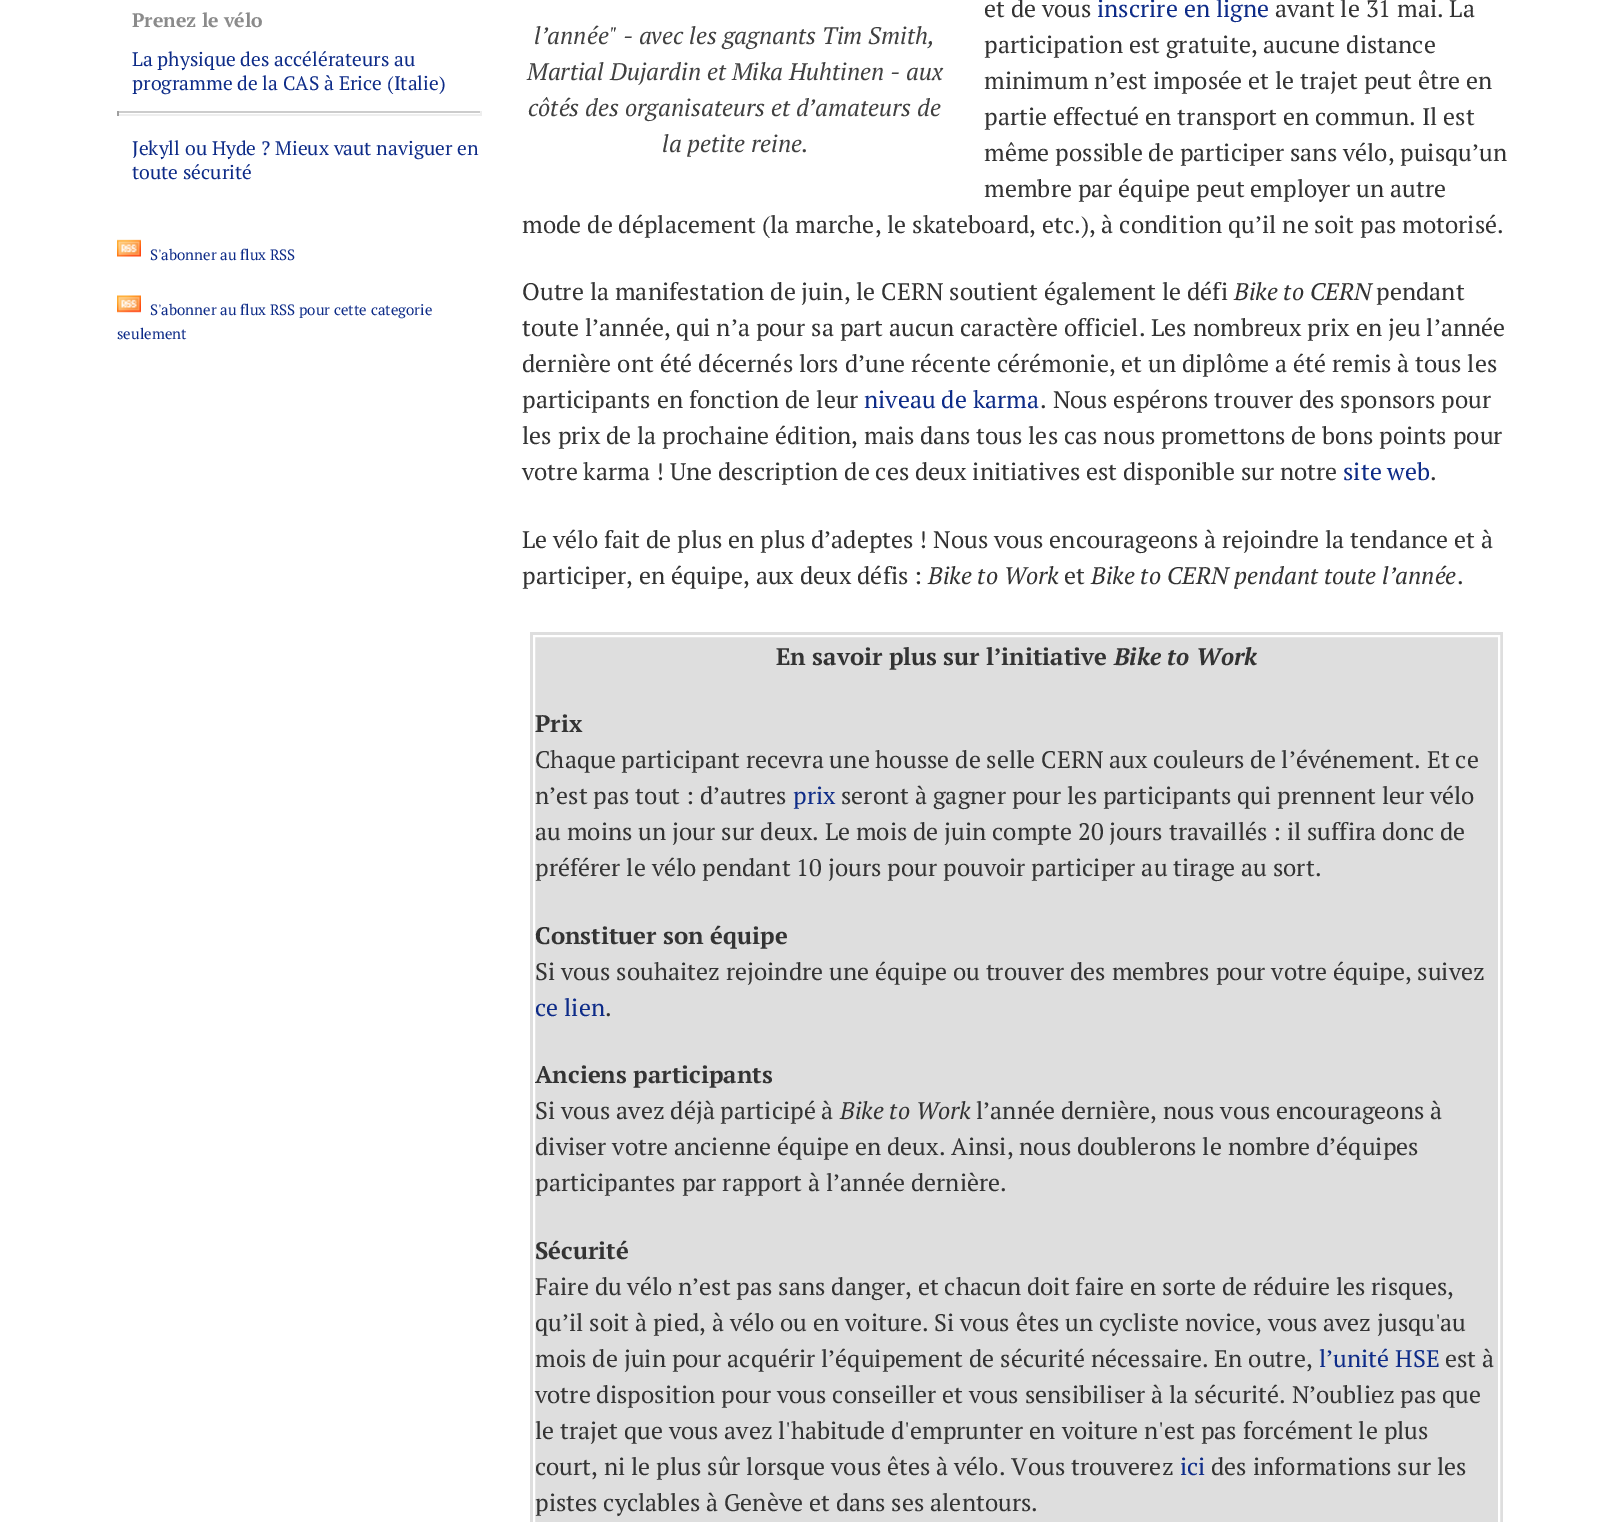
%!PS-Adobe-3.0
%%BoundingBox: 0 0 1608 1522
%%LanguageLevel: 3
%%Pages: 1
%%EndComments
%%BeginProlog
/drawimage { 5 dict begin { /h /w /y /x /name } { exch def } forall
  gsave x y translate w h scale
  w h 8 [w 0 0 h 0 0] name (r) file false 3 colorimage grestore end } def
%%EndProlog
%%BeginSetup
<< /PageSize [1608 1522] >> setpagedevice
%%EndSetup
%%Page: 1 1
0 1522 translate 1 -1 scale
4 setmiterlimit
1 setgray
0 0 1608 1522 rectfill
0.8 setgray
117 111 365 2 rectfill
0.933 setgray
480 111 2 5 rectfill
117 114 365 2 rectfill
0.624 setgray
117 111 2 5 rectfill
(images/1.raw) 117 239 24 18 drawimage
(images/2.raw) 117 295 24 18 drawimage
0.871 setgray
530 632 973 890 rectfill
1 setgray
2 setlinewidth
534 636 965 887 rectstroke
/PTSerif-Bold [19.5 0 0 -19.5 0 0] selectfont
0.545 setgray
132 27 moveto (Prenez le vélo) show
/PTSerif-Regular [19.5 0 0 -19.5 0 0] selectfont
0.051 0.169 0.533 setrgbcolor
132 66 moveto (La physique des accélérateurs au) show
132 90 moveto (programme de la CAS à Erice \(Italie\)) show
132 155 moveto (Jekyll ou Hyde ? Mieux vaut naviguer en) show
132 179 moveto (toute sécurité) show
/PTSerif-Regular [15 0 0 -15 0 0] selectfont
150 260 moveto (S'abonner au flux RSS) show
150 315 moveto (S'abonner au flux RSS pour cette categorie) show
117 339 moveto (seulement) show
/PTSerif-Regular [24 0 0 -24 0 0] selectfont
0.2 setgray
984 17 moveto (et de vous) show
0.051 0.169 0.533 setrgbcolor
1097 17 moveto (inscrire en ligne) show
0.2 setgray
1275 17 moveto (avant le 31 mai. La) show
984 53 moveto (participation est gratuite, aucune distance) show
984 89 moveto (minimum n’est imposée et le trajet peut être en) show
984 125 moveto (partie effectué en transport en commun. Il est) show
984 161 moveto (même possible de participer sans vélo, puisqu’un) show
984 197 moveto (membre par équipe peut employer un autre) show
522 233 moveto (mode de déplacement \(la marche, le skateboard, etc.\), à condition qu’il ne soit pas motorisé.) show
/PTSerif-Italic [24 0 0 -24 0 0] selectfont
0.255 setgray
534 44 moveto (l’année" - avec les gagnants Tim Smith,) show
527 80 moveto (Martial Dujardin et Mika Huhtinen - aux) show
528 116 moveto (côtés des organisateurs et d’amateurs de) show
662 152 moveto (la petite reine.) show
/PTSerif-Regular [24 0 0 -24 0 0] selectfont
0.2 setgray
522 300 moveto (Outre la manifestation de juin, le CERN soutient également le défi) show
/PTSerif-Italic [24 0 0 -24 0 0] selectfont
1234 300 moveto (Bike to CERN) show
/PTSerif-Regular [24 0 0 -24 0 0] selectfont
1376 300 moveto (pendant) show
522 336 moveto (toute l’année, qui n’a pour sa part aucun caractère officiel. Les nombreux prix en jeu l’année) show
522 372 moveto (dernière ont été décernés lors d’une récente cérémonie, et un diplôme a été remis à tous les) show
522 408 moveto (participants en fonction de leur) show
0.051 0.169 0.533 setrgbcolor
864 408 moveto (niveau de karma) show
0.2 setgray
1040 408 moveto (. Nous espérons trouver des sponsors pour) show
522 444 moveto (les prix de la prochaine édition, mais dans tous les cas nous promettons de bons points pour) show
522 480 moveto (votre karma ! Une description de ces deux initiatives est disponible sur notre) show
0.051 0.169 0.533 setrgbcolor
1343 480 moveto (site web) show
0.2 setgray
1430 480 moveto (.) show
522 548 moveto (Le vélo fait de plus en plus d’adeptes ! Nous vous encourageons à rejoindre la tendance et à) show
522 584 moveto (participer, en équipe, aux deux défis :) show
/PTSerif-Italic [24 0 0 -24 0 0] selectfont
928 584 moveto (Bike to Work) show
/PTSerif-Regular [24 0 0 -24 0 0] selectfont
1064 584 moveto (et) show
/PTSerif-Italic [24 0 0 -24 0 0] selectfont
1091 584 moveto (Bike to CERN pendant toute l’année) show
/PTSerif-Regular [24 0 0 -24 0 0] selectfont
1457 584 moveto (.) show
/PTSerif-Bold [24 0 0 -24 0 0] selectfont
776 665 moveto (En savoir plus sur l’initiative) show
/PTSerif-BoldItalic [24 0 0 -24 0 0] selectfont
1114 665 moveto (Bike to Work) show
/PTSerif-Bold [24 0 0 -24 0 0] selectfont
535 732 moveto (Prix) show
/PTSerif-Regular [24 0 0 -24 0 0] selectfont
535 768 moveto (Chaque participant recevra une housse de selle CERN aux couleurs de l’événement. Et ce) show
535 804 moveto (n’est pas tout : d’autres) show
0.051 0.169 0.533 setrgbcolor
793 804 moveto (prix) show
0.2 setgray
841 804 moveto (seront à gagner pour les participants qui prennent leur vélo) show
535 840 moveto (au moins un jour sur deux. Le mois de juin compte 20 jours travaillés : il suffira donc de) show
535 876 moveto (préférer le vélo pendant 10 jours pour pouvoir participer au tirage au sort.) show
/PTSerif-Bold [24 0 0 -24 0 0] selectfont
535 944 moveto (Constituer son équipe) show
/PTSerif-Regular [24 0 0 -24 0 0] selectfont
535 980 moveto (Si vous souhaitez rejoindre une équipe ou trouver des membres pour votre équipe, suivez) show
0.051 0.169 0.533 setrgbcolor
535 1016 moveto (ce lien) show
0.2 setgray
605 1016 moveto (.) show
/PTSerif-Bold [24 0 0 -24 0 0] selectfont
535 1083 moveto (Anciens participants) show
/PTSerif-Regular [24 0 0 -24 0 0] selectfont
535 1119 moveto (Si vous avez déjà participé à) show
/PTSerif-Italic [24 0 0 -24 0 0] selectfont
840 1119 moveto (Bike to Work) show
/PTSerif-Regular [24 0 0 -24 0 0] selectfont
976 1119 moveto (l’année dernière, nous vous encourageons à) show
535 1155 moveto (diviser votre ancienne équipe en deux. Ainsi, nous doublerons le nombre d’équipes) show
535 1191 moveto (participantes par rapport à l’année dernière.) show
/PTSerif-Bold [24 0 0 -24 0 0] selectfont
535 1259 moveto (Sécurité) show
/PTSerif-Regular [24 0 0 -24 0 0] selectfont
535 1295 moveto (Faire du vélo n’est pas sans danger, et chacun doit faire en sorte de réduire les risques,) show
535 1331 moveto (qu’il soit à pied, à vélo ou en voiture. Si vous êtes un cycliste novice, vous avez jusqu'au) show
535 1367 moveto (mois de juin pour acquérir l’équipement de sécurité nécessaire. En outre,) show
0.051 0.169 0.533 setrgbcolor
1319 1367 moveto (l’unité HSE) show
0.2 setgray
1445 1367 moveto (est à) show
535 1403 moveto (votre disposition pour vous conseiller et vous sensibiliser à la sécurité. N’oubliez pas que) show
535 1439 moveto (le trajet que vous avez l'habitude d'emprunter en voiture n'est pas forcément le plus) show
535 1475 moveto (court, ni le plus sûr lorsque vous êtes à vélo. Vous trouverez) show
0.051 0.169 0.533 setrgbcolor
1180 1475 moveto (ici) show
0.2 setgray
1211 1475 moveto (des informations sur les) show
535 1511 moveto (pistes cyclables à Genève et dans ses alentours.) show
showpage
%%EOF
